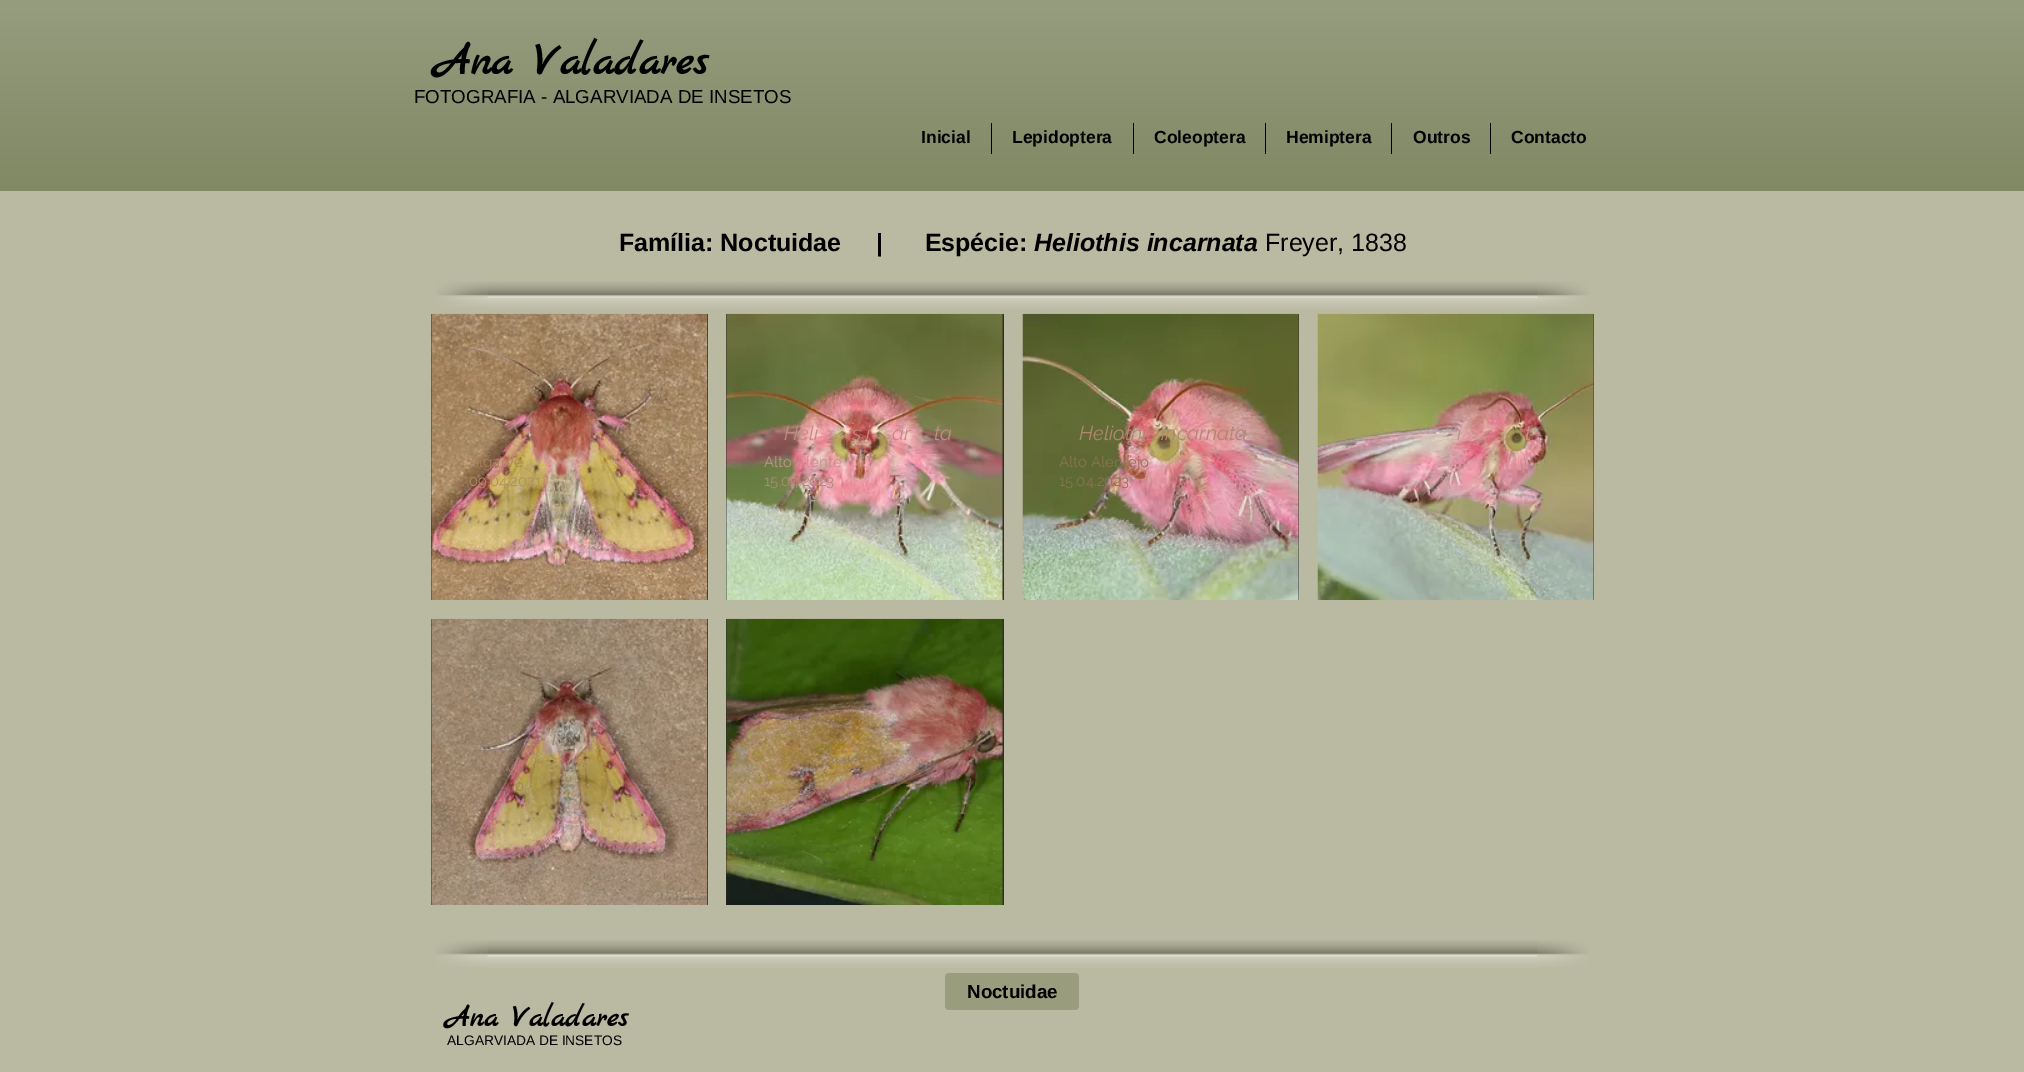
%!PS-Adobe-3.0
%%BoundingBox: 0 0 2024 1072
%%LanguageLevel: 3
%%Pages: 1
%%EndComments
%%BeginProlog
/rrect { 5 dict begin { /r /h /w /y /x } { exch def } forall
  x r add y moveto x w add y 2 copy h add r arct x w add y h add x 1 index r arct
  x y h add x y r arct x y 2 copy exch w add exch r arct closepath end } def
/drawimage { 5 dict begin { /h /w /y /x /name } { exch def } forall
  gsave x y translate w h scale
  w h 8 [w 0 0 h 0 0] name (r) file false 3 colorimage grestore end } def
%%EndProlog
%%BeginSetup
<< /PageSize [2024 1072] >> setpagedevice
%%EndSetup
%%Page: 1 1
0 1072 translate 1 -1 scale
4 setmiterlimit
0.729 0.725 0.635 setrgbcolor
0 0 2024 1072 rectfill
0.443 0.478 0.322 setrgbcolor
0 0 2024 191 rectfill
(images/1.raw) 0 0 2024 191 drawimage
0 setgray
991 123 1 31 rectfill
1133 123 1 31 rectfill
1265 123 1 31 rectfill
1391 123 1 31 rectfill
1490 123 1 31 rectfill
(images/2.raw) 487 281 1051 28 drawimage
(images/3.raw) 436 281 52 27 drawimage
(images/4.raw) 1537 281 52 27 drawimage
0.184 0.18 0.18 setrgbcolor
431 314 277 286 rectfill
(images/5.raw) 431 313 277 287 drawimage
726 314 278 286 rectfill
(images/6.raw) 726 313 277 287 drawimage
1298 314 1 286 rectfill
(images/7.raw) 1022 313 277 287 drawimage
1593 314 1 286 rectfill
(images/8.raw) 1317 313 277 287 drawimage
431 619 277 286 rectfill
(images/9.raw) 431 618 277 287 drawimage
726 619 278 286 rectfill
(images/10.raw) 726 618 277 287 drawimage
(images/11.raw) 487 940 1051 28 drawimage
(images/12.raw) 436 940 52 27 drawimage
(images/13.raw) 1537 940 52 27 drawimage
0.6 0.616 0.494 setrgbcolor
945 973 134 37 4 rrect fill
/MarckScript-Bold [45 0 0 -45 0 0] selectfont
0 setgray
435 74 moveto (Ana Valadares) show
/LiberationSans-Regular [18.75 0 0 -18.75 0 0] selectfont
414 103 moveto (FOTOGRAFIA - ALGARVIADA DE INSETOS) show
/LiberationSans-Bold [17.5 0 0 -17.5 0 0] selectfont
921 143 moveto (Inicial) show
1012 143 moveto (Lepidoptera) show
1154 143 moveto (Coleoptera) show
1286 143 moveto (Hemiptera) show
1413 143 moveto (Outros) show
1511 143 moveto (Contacto) show
/LiberationSans-Bold [25 0 0 -25 0 0] selectfont
619 251 moveto (Família: Noctuidae     |      Espécie:) show
/LiberationSans-BoldItalic [25 0 0 -25 0 0] selectfont
1034 251 moveto (Heliothis incarnata) show
/LiberationSans-Regular [25 0 0 -25 0 0] selectfont
1265 251 moveto (Freyer, 1838) show
/Raleway-Regular [15 0 0 -15 0 0] selectfont
0.663 0.506 0.357 setrgbcolor
469 467 moveto (Algarve) show
0.69 0.561 0.353 setrgbcolor
469 486 moveto (09.04.2021) show
/Raleway-Italic [20 0 0 -20 0 0] selectfont
0.757 0.549 0.51 setrgbcolor
784 440 moveto (Heli) show
852 440 moveto (s i) show
892 440 moveto (ar) show
934 440 moveto (ta) show
/Raleway-Regular [15 0 0 -15 0 0] selectfont
0.761 0.573 0.541 setrgbcolor
764 467 moveto (Alto Alente) show
0.671 0.549 0.471 setrgbcolor
764 486 moveto (15.04.2023) show
/Raleway-Italic [20 0 0 -20 0 0] selectfont
0.69 0.533 0.447 setrgbcolor
1079 440 moveto (Heliothis incarnata) show
/Raleway-Regular [15 0 0 -15 0 0] selectfont
0.529 0.459 0.329 setrgbcolor
1059 467 moveto (Alto Alentejo) show
1059 486 moveto (15.04.2023) show
/Raleway-Italic [20 0 0 -20 0 0] selectfont
0.761 0.573 0.541 setrgbcolor
1457 440 moveto (i) show
1525 440 moveto (t) show
/Raleway-Regular [15 0 0 -15 0 0] selectfont
0.792 0.545 0.6 setrgbcolor
1369 486 moveto (.) show
/Raleway-Italic [20 0 0 -20 0 0] selectfont
0.624 0.518 0.447 setrgbcolor
552 745 moveto (i) show
/Raleway-Regular [15 0 0 -15 0 0] selectfont
0.608 0.482 0.404 setrgbcolor
506 772 moveto (v) show
0.62 0.502 0.365 setrgbcolor
515 791 moveto (0) show
/LiberationSans-Bold [18.75 0 0 -18.75 0 0] selectfont
0 setgray
967 998 moveto (Noctuidae) show
/MarckScript-Bold [30 0 0 -30 0 0] selectfont
446 1026 moveto (Ana Valadares) show
/LiberationSans-Regular [13.75 0 0 -13.75 0 0] selectfont
447 1045 moveto (ALGARVIADA DE INSETOS) show
showpage
%%EOF
